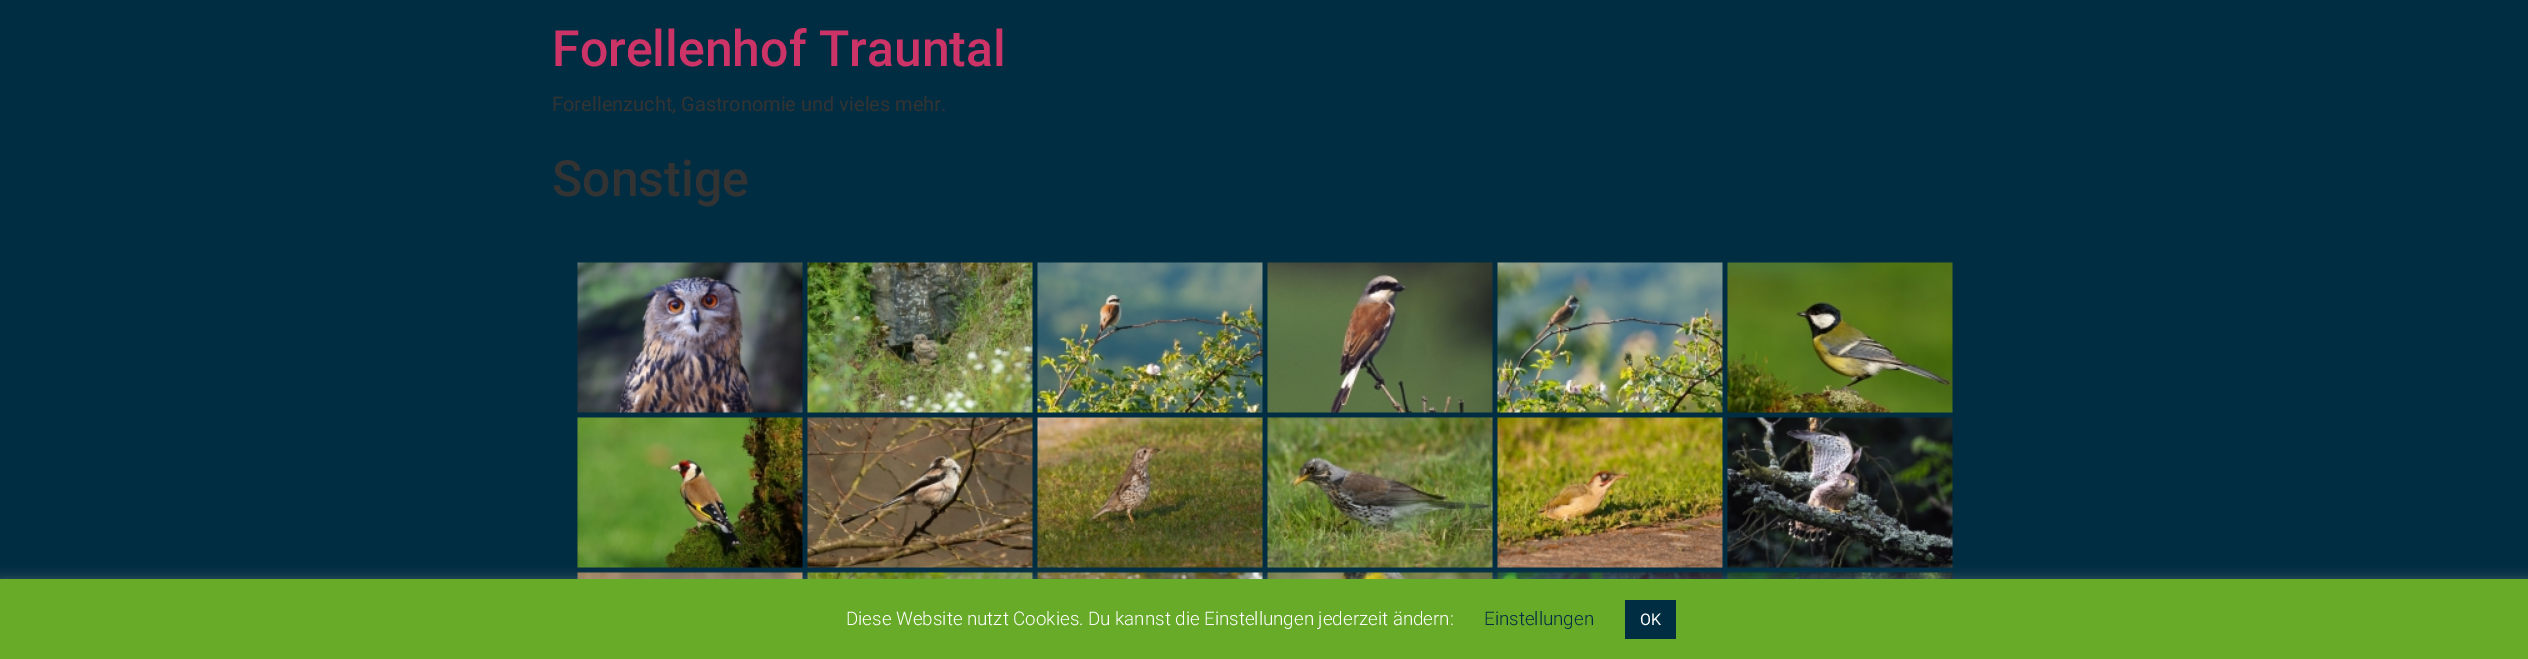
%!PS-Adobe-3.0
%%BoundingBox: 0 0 2528 659
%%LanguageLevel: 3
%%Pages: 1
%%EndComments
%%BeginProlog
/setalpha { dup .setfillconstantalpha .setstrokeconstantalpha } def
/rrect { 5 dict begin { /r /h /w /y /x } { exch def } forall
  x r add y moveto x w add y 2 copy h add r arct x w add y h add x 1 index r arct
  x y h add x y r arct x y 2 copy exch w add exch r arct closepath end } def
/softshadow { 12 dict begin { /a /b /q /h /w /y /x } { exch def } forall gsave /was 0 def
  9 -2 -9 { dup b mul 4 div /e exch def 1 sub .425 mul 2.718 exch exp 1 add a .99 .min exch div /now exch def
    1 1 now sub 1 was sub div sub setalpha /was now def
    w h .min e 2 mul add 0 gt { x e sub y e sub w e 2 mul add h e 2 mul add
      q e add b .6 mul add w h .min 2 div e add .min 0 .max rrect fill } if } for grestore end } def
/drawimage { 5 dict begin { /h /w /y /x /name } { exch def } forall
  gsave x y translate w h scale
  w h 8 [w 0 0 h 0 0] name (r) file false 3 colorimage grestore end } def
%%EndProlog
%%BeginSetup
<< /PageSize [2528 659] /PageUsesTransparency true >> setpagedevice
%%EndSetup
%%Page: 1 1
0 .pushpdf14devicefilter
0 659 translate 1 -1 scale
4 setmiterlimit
0.004 0.176 0.259 setrgbcolor
0 0 2528 659 rectfill
(images/1.raw) 577 262 226 151 drawimage
(images/2.raw) 807 262 226 151 drawimage
(images/3.raw) 1037 262 226 151 drawimage
(images/4.raw) 1267 262 226 151 drawimage
(images/5.raw) 1497 262 226 151 drawimage
(images/6.raw) 1727 262 226 151 drawimage
(images/7.raw) 577 417 226 151 drawimage
(images/8.raw) 807 417 226 151 drawimage
(images/9.raw) 1037 417 226 151 drawimage
(images/10.raw) 1267 417 226 151 drawimage
(images/11.raw) 1497 417 226 151 drawimage
(images/12.raw) 1727 417 226 151 drawimage
(images/13.raw) 577 572 226 7 drawimage
(images/14.raw) 807 572 226 7 drawimage
(images/15.raw) 1037 572 226 7 drawimage
(images/16.raw) 1267 572 226 7 drawimage
(images/17.raw) 1497 572 226 7 drawimage
(images/18.raw) 1727 572 226 7 drawimage
0.675 0.671 0.671 setrgbcolor
0 578 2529 81 0 6 0.3 softshadow
0.404 0.671 0.161 setrgbcolor
0 579 2528 80 rectfill
0.004 0.176 0.259 setrgbcolor
1625 600 51 39 rectfill
/Roboto-Medium [50 0 0 -50 0 0] selectfont
0.8 0.2 0.4 setrgbcolor
552 66 moveto (Forellenhof Trauntal) show
/Roboto-Regular [20 0 0 -20 0 0] selectfont
0.2 setgray
552 111 moveto (Forellenzucht, Gastronomie und vieles mehr.) show
/Roboto-Medium [50 0 0 -50 0 0] selectfont
552 196 moveto (Sonstige) show
/Roboto-Light [18.75 0 0 -18.75 0 0] selectfont
1 setgray
846 625 moveto (Diese Website nutzt Cookies. Du kannst die Einstellungen jederzeit ändern:) show
0.004 0.176 0.259 setrgbcolor
1484 625 moveto (Einstellungen) show
/Roboto-Regular [16 0 0 -16 0 0] selectfont
1 setgray
1640 625 moveto (OK) show
.poppdf14devicefilter showpage
%%EOF
